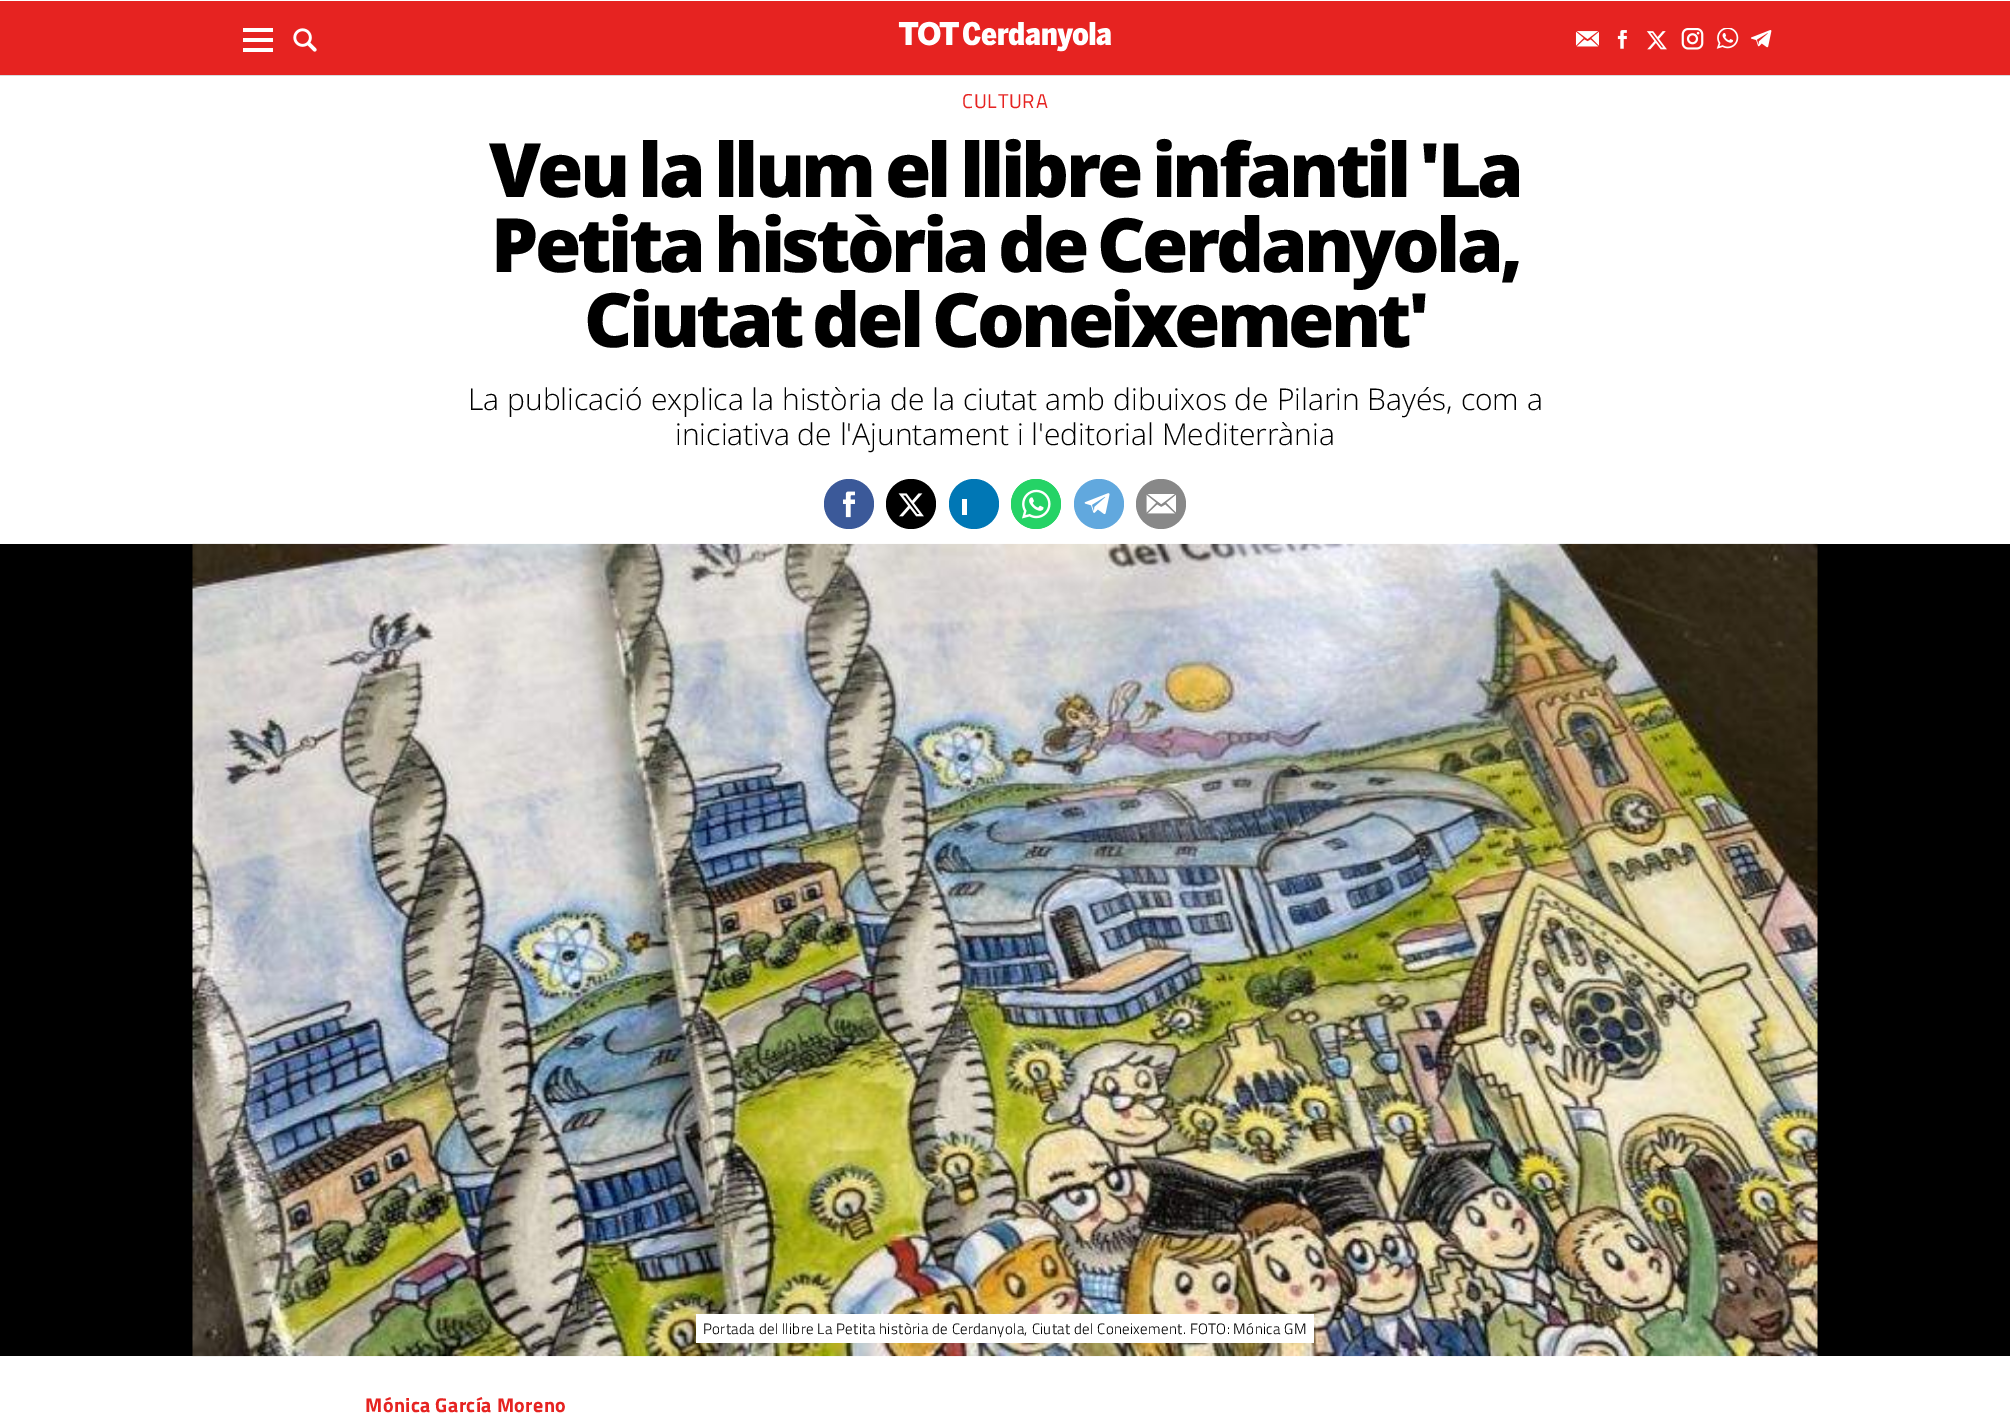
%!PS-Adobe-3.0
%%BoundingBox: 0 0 2010 1421
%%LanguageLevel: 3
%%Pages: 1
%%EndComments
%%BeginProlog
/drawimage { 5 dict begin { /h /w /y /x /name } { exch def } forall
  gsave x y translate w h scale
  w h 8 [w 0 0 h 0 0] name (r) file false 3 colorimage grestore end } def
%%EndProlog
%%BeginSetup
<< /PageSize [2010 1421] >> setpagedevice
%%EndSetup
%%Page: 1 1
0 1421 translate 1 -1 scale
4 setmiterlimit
1 setgray
0 0 2010 1421 rectfill
0.902 0.137 0.129 setrgbcolor
0 1 2010 74 rectfill
0.851 0.851 0.859 setrgbcolor
0 75 2010 1 rectfill
(images/1.raw) 898 21 213 31 drawimage
1 setgray
243 28 30 4 rectfill
243 38 30 4 rectfill
243 48 30 4 rectfill
(images/2.raw) 293 28 24 24 drawimage
(images/3.raw) 1575 31 24 16 drawimage
(images/4.raw) 1617 30 10 19 drawimage
(images/5.raw) 1646 31 21 19 drawimage
(images/6.raw) 1681 28 23 22 drawimage
(images/7.raw) 1716 28 23 21 drawimage
(images/8.raw) 1751 30 21 18 drawimage
0.231 0.349 0.6 setrgbcolor
newpath 849 504 25 0 360 arc closepath fill
(images/9.raw) 843 491 12 27 drawimage
0 setgray
newpath 911 504 25 0 360 arc closepath fill
(images/10.raw) 898 493 26 24 drawimage
0 0.467 0.71 setrgbcolor
newpath 974 504 25 0 360 arc closepath fill
1 setgray
962 499 5 16 rectfill
(images/11.raw) 1011 479 50 50 drawimage
0.38 0.659 0.871 setrgbcolor
newpath 1099 504 25 0 360 arc closepath fill
(images/12.raw) 1084 493 26 22 drawimage
0.533 setgray
newpath 1161 504 25 0 360 arc closepath fill
(images/13.raw) 1146 494 30 20 drawimage
0 setgray
0 544 2010 812 rectfill
(images/14.raw) 192 543 1626 814 drawimage
1 setgray
696 1314 618 29 rectfill
/TitilliumWeb-Regular [20 0 0 -20 0 0] selectfont
0.902 0.137 0.129 setrgbcolor
962 108 moveto 0.75 0 (CULTURA) ashow
/OpenSans-ExtraBold [75 0 0 -75 0 0] selectfont
0 setgray
489 197 moveto -3.75 0 32 -3.75 0 (Veu la llum el llibre infantil 'La) awidthshow
491 272 moveto -3.75 0 32 -3.75 0 (Petita història de Cerdanyola,) awidthshow
584 347 moveto -3.75 0 32 -3.75 0 (Ciutat del Coneixement') awidthshow
/OpenSans-Light [30 0 0 -30 0 0] selectfont
468 410 moveto (La publicació explica la història de la ciutat amb dibuixos de Pilarin Bayés, com a) show
675 445 moveto (iniciativa de l'Ajuntament i l'editorial Mediterrània) show
/TitilliumWeb-Light [15 0 0 -15 0 0] selectfont
703 1334 moveto 0.3 0 (Portada del llibre La Petita història de Cerdanyola, Ciutat del Coneixement. FOTO: Mónica GM) ashow
/TitilliumWeb-Bold [20 0 0 -20 0 0] selectfont
0.902 0.137 0.129 setrgbcolor
365 1412 moveto 0.4 0 (Mónica García Moreno) ashow
showpage
%%EOF
